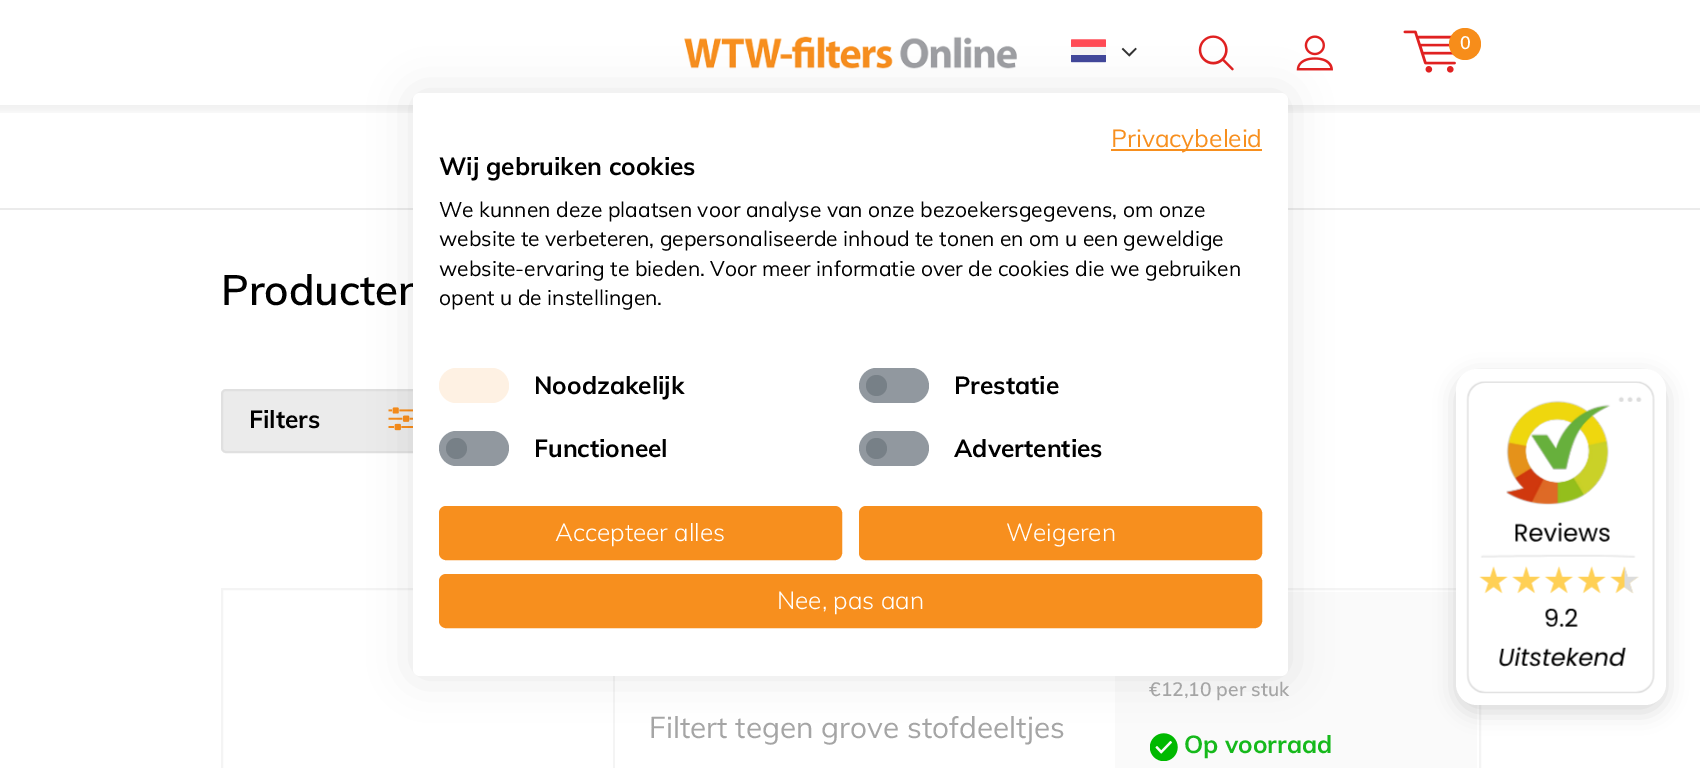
%!PS-Adobe-3.0
%%BoundingBox: 0 0 1700 768
%%LanguageLevel: 3
%%Pages: 1
%%EndComments
%%BeginProlog
/setalpha { dup .setfillconstantalpha .setstrokeconstantalpha } def
/rrect { 5 dict begin { /r /h /w /y /x } { exch def } forall
  x r add y moveto x w add y 2 copy h add r arct x w add y h add x 1 index r arct
  x y h add x y r arct x y 2 copy exch w add exch r arct closepath end } def
/softshadow { 12 dict begin { /a /b /q /h /w /y /x } { exch def } forall gsave /was 0 def
  9 -2 -9 { dup b mul 4 div /e exch def 1 sub .425 mul 2.718 exch exp 1 add a .99 .min exch div /now exch def
    1 1 now sub 1 was sub div sub setalpha /was now def
    w h .min e 2 mul add 0 gt { x e sub y e sub w e 2 mul add h e 2 mul add
      q e add b .6 mul add w h .min 2 div e add .min 0 .max rrect fill } if } for grestore end } def
/drawimage { 5 dict begin { /h /w /y /x /name } { exch def } forall
  gsave x y translate w h scale
  w h 8 [w 0 0 h 0 0] name (r) file false 3 colorimage grestore end } def
%%EndProlog
%%BeginSetup
<< /PageSize [1700 768] /PageUsesTransparency true >> setpagedevice
%%EndSetup
%%Page: 1 1
0 .pushpdf14devicefilter
0 768 translate 1 -1 scale
4 setmiterlimit
1 setgray
0 0 1700 768 rectfill
gsave
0 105 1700 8 rectclip
0 setgray
-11 7 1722 105 0 3.5 0.05 softshadow
grestore
(images/1.raw) 684 36 333 33 drawimage
(images/2.raw) 1071 39 35 24 drawimage
(images/3.raw) 1121 47 16 10 drawimage
(images/4.raw) 1198 35 36 36 drawimage
(images/5.raw) 1296 35 37 36 drawimage
(images/6.raw) 1403 30 53 43 drawimage
0.969 0.553 0.102 setrgbcolor
newpath 1465 44 16 0 360 arc closepath fill
0.922 setgray
0 208 1700 2 rectfill
222 390 260 62 4 rrect gsave fill grestore
0.878 setgray
2 setlinewidth
stroke
(images/7.raw) 388 407 25 24 drawimage
0.957 setgray
222 589 1258 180 rectstroke
613 676 2 92 rectfill
0.98 setgray
1115 592 362 176 rectfill
(images/8.raw) 1150 733 28 28 drawimage
0 setgray
413 93 875 583 7 21 0.1 softshadow
1456 376 210 336 21 10.5 0.15 softshadow
1 setgray
1456 369 210 336 21 rrect fill
(images/9.raw) 1466 381 189 313 drawimage
/Muli-SemiBold [18 0 0 -18 0 0] selectfont
1460 49 moveto (0) show
/Muli-SemiBold [42 0 0 -42 0 0] selectfont
0 setgray
221 305 moveto (Producten) show
/Muli-Bold [24.5 0 0 -24.5 0 0] selectfont
249 428 moveto (Filters) show
/Muli-Regular [29.75 0 0 -29.75 0 0] selectfont
0.647 setgray
649 738 moveto (Filtert tegen grove stofdeeltjes) show
/Muli-SemiBold [19.25 0 0 -19.25 0 0] selectfont
1149 696 moveto (€12,10 per stuk) show
/Muli-Bold [24.5 0 0 -24.5 0 0] selectfont
0.086 0.725 0.106 setrgbcolor
1184 753 moveto (Op voorraad) show
1 setgray
413 93 875 583 7 rrect fill
0.969 0.561 0.118 setrgbcolor
1111 149 151 2 rectfill
/Muli-Regular [24.5 0 0 -24.5 0 0] selectfont
1111 147 moveto (Privacybeleid) show
/Muli-Bold [24.5 0 0 -24.5 0 0] selectfont
0 setgray
439 175 moveto (Wij gebruiken cookies) show
/Muli-Regular [21 0 0 -21 0 0] selectfont
439 217 moveto (We kunnen deze plaatsen voor analyse van onze bezoekersgegevens, om onze) show
439 246 moveto (website te verbeteren, gepersonaliseerde inhoud te tonen en om u een geweldige) show
439 276 moveto (website-ervaring te bieden. Voor meer informatie over de cookies die we gebruiken) show
439 305 moveto (opent u de instellingen.) show
1 0.976 0.957 setrgbcolor
439 368 70 35 17.5 rrect fill
0.996 0.945 0.89 setrgbcolor
newpath 456 368 moveto 492 368 lineto 501 368 509 376 509 386 curveto 509 395 501 403 492 403 curveto 456 403 lineto 447 403 439 395 439 386 curveto 439 376 447 368 456 368 curveto closepath fill
/Muli-Bold [24.5 0 0 -24.5 0 0] selectfont
0 setgray
534 394 moveto (Noodzakelijk) show
0.914 0.925 0.937 setrgbcolor
859 368 70 35 17.5 rrect fill
0.573 0.6 0.624 setrgbcolor
newpath 876.5 385.5 10.5 0 360 arc closepath fill
0.7 setalpha
0.424 0.459 0.49 setrgbcolor
newpath 876 368 moveto 912 368 lineto 921 368 929 376 929 386 curveto 929 395 921 403 912 403 curveto 876 403 lineto 867 403 859 395 859 386 curveto 859 376 867 368 876 368 curveto closepath fill
1 setalpha
0 setgray
954 394 moveto (Prestatie) show
0.914 0.925 0.937 setrgbcolor
439 431 70 35 17.5 rrect fill
0.573 0.6 0.624 setrgbcolor
newpath 456.5 448.5 10.5 0 360 arc closepath fill
0.7 setalpha
0.424 0.459 0.49 setrgbcolor
newpath 456 431 moveto 492 431 lineto 501 431 509 439 509 448 curveto 509 458 501 466 492 466 curveto 456 466 lineto 447 466 439 458 439 448 curveto 439 439 447 431 456 431 curveto closepath fill
1 setalpha
0 setgray
534 457 moveto (Functioneel) show
0.914 0.925 0.937 setrgbcolor
859 431 70 35 17.5 rrect fill
0.573 0.6 0.624 setrgbcolor
newpath 876.5 448.5 10.5 0 360 arc closepath fill
0.7 setalpha
0.424 0.459 0.49 setrgbcolor
newpath 876 431 moveto 912 431 lineto 921 431 929 439 929 448 curveto 929 458 921 466 912 466 curveto 876 466 lineto 867 466 859 458 859 448 curveto 859 439 867 431 876 431 curveto closepath fill
1 setalpha
0 setgray
954 457 moveto (Advertenties) show
0.969 0.561 0.118 setrgbcolor
440 507 401 52 6 rrect gsave fill grestore
stroke
/Muli-Light [24.5 0 0 -24.5 0 0] selectfont
1 setgray
555 541 moveto (Accepteer alles) show
0.969 0.561 0.118 setrgbcolor
860 507 401 52 6 rrect gsave fill grestore
stroke
1 setgray
1006 541 moveto (Weigeren) show
0.969 0.561 0.118 setrgbcolor
440 575 821 52 6 rrect gsave fill grestore
stroke
1 setgray
777 609 moveto (Nee, pas aan) show
.poppdf14devicefilter showpage
%%EOF
